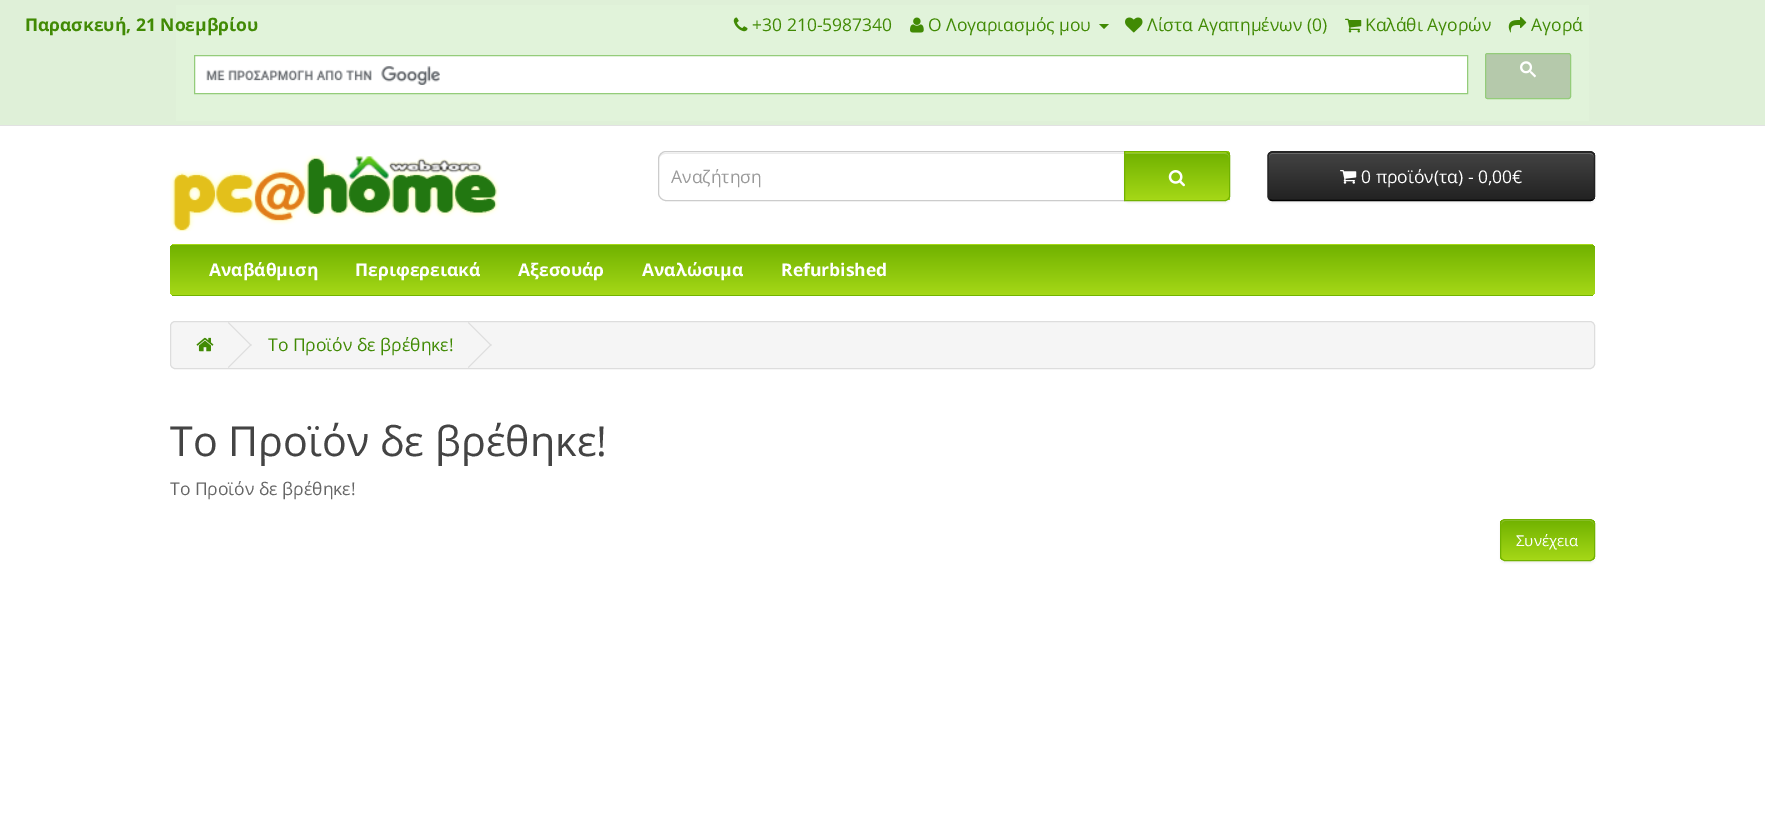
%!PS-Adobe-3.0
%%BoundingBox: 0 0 1765 815
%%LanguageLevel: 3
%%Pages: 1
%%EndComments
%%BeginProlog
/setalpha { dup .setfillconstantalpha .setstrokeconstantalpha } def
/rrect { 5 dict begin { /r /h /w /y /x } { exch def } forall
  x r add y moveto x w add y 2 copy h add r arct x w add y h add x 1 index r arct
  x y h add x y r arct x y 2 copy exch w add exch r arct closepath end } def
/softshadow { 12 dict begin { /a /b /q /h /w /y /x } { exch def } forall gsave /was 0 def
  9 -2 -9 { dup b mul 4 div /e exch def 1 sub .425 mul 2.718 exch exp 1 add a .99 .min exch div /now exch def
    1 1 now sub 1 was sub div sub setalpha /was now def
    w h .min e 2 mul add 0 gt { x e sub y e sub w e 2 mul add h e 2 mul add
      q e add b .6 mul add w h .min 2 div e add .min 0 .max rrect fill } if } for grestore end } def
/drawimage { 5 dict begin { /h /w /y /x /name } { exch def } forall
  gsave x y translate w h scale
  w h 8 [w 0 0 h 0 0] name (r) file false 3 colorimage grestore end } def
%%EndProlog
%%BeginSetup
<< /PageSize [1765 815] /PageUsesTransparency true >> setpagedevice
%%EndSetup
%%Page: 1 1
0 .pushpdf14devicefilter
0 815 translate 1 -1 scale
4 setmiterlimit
1 setgray
0 0 1765 815 rectfill
0.875 0.941 0.847 setrgbcolor
0 0 1765 125 rectfill
0.886 setgray
0 125 1765 1 rectfill
0.882 0.953 0.855 setrgbcolor
176 5 1413 116 rectfill
1 setgray
newpath 194.5 55.5 moveto 1467.5 55.5 lineto 1467.5 93.5 lineto 194.5 93.5 lineto closepath gsave fill grestore
0.58 0.8 0.478 setrgbcolor
stroke
(images/1.raw) 206 66 234 19 drawimage
0.71 0.788 0.671 setrgbcolor
1485.5 53.5 85 45 2 rrect gsave fill grestore
0.58 0.8 0.478 setrgbcolor
stroke
(images/2.raw) 1520 61 16 17 drawimage
(images/3.raw) 733 17 15 15 drawimage
(images/4.raw) 910 17 14 16 drawimage
0.255 0.541 0.016 setrgbcolor
newpath 1099 24 moveto 1109 24 lineto 1104 29 lineto closepath fill
(images/5.raw) 1125 17 18 16 drawimage
(images/6.raw) 1345 18 17 15 drawimage
(images/7.raw) 1508 16 19 17 drawimage
(images/8.raw) 170 155 330 77 drawimage
0.925 setgray
newpath 665 154 moveto 1124 154 lineto 1124 153 lineto 665 153 lineto 661 153 659 156 659 160 curveto 659 157 662 154 665 154 curveto closepath fill
0.8 setgray
newpath 666 151.5 moveto 1124.5 151.5 lineto 1124.5 200.5 lineto 666 200.5 lineto 662 200.5 658.5 197 658.5 193 curveto 658.5 159 lineto 658.5 155 662 151.5 666 151.5 curveto closepath stroke
0 setgray
1124 153 106 50 5 1 0.05 softshadow
gsave
newpath 1124 151 moveto 1225 151 lineto 1228 151 1230 153 1230 156 curveto 1230 196 lineto 1230 199 1228 201 1225 201 curveto 1124 201 lineto closepath clip newpath
gsave newpath 1124 151 moveto 1230 151 lineto 1230 153 lineto 1124 153 lineto closepath clip newpath
<< /ShadingType 2 /ColorSpace /DeviceRGB /Coords [1177 105 1177 153] /Extend [true true] /Function << /FunctionType 2 /Domain [0 1] /C0 [0.443 0.698 0] /C1 [0.647 0.847 0.09] /N 1 >> >> shfill grestore
gsave newpath 1125 153 moveto 1230 153 lineto 1230 200 lineto 1125 200 lineto closepath clip newpath
<< /ShadingType 2 /ColorSpace /DeviceRGB /Coords [1177 153 1177 200] /Extend [true true] /Function << /FunctionType 2 /Domain [0 1] /C0 [0.443 0.698 0] /C1 [0.647 0.847 0.09] /N 1 >> >> shfill grestore
grestore
0.557 0.757 0.2 setrgbcolor
newpath 1125 154 moveto 1225 154 lineto 1227 154 1229 155 1229 158 curveto 1229 157 lineto 1229 155 1227 153 1225 153 curveto 1125 153 lineto closepath fill
0.443 0.698 0 setrgbcolor
newpath 1124.5 151.5 moveto 1225 151.5 lineto 1227.5 151.5 1229.5 153.5 1229.5 156 curveto 1229.5 196 lineto 1229.5 198.5 1227.5 200.5 1225 200.5 curveto 1124.5 200.5 lineto closepath stroke
(images/9.raw) 1168 170 17 17 drawimage
0 setgray
1268 153 327 50 5 1 0.05 softshadow
0.212 setgray
1268 151 327 50 5 rrect fill
gsave
1268 151 327 50 5 rrect clip newpath
gsave newpath 1268 153 moveto 1595 153 lineto 1595 200 lineto 1268 200 lineto closepath clip newpath
<< /ShadingType 2 /ColorSpace /DeviceRGB /Coords [1431 152 1431 200] /Extend [true true] /Function << /FunctionType 2 /Domain [0 1] /C0 [0.267 0.267 0.267] /C1 [0.133 0.133 0.133] /N 1 >> >> shfill grestore
grestore
0.412 setgray
newpath 1272 154 moveto 1590 154 lineto 1592 154 1594 155 1594 158 curveto 1594 157 lineto 1594 155 1592 153 1590 153 curveto 1273 153 lineto 1271 153 1269 155 1269 157 curveto 1269 158 lineto 1269 155 1270 154 1272 154 curveto closepath fill
0 setgray
1.2 setlinewidth
newpath 1593 199.5 moveto 1592.5 200 1591 200.5 1590 200.5 curveto 1272.5 200.5 lineto 1271.5 200.5 1270 200 1269.5 199.5 curveto stroke
0.133 setgray
newpath 1269.5 199.5 moveto 1268.5 198.5 1268 197.5 1268 196 curveto 1268 156 lineto 1268 155 1268.5 154 1269.5 153 curveto 1270 152.5 1271.5 152 1272.5 152 curveto 1590 152 lineto 1591 152 1592.5 152.5 1593 153 curveto 1594 154 1594.5 155 1594.5 156 curveto 1594.5 196 lineto 1594.5 197.5 1594 198.5 1593 199.5 curveto stroke
(images/10.raw) 1340 170 17 14 drawimage
gsave
170 244 1425 52 5 rrect clip newpath
gsave newpath 170 244 moveto 1595 244 lineto 1595 245 lineto 170 245 lineto closepath clip newpath
<< /ShadingType 2 /ColorSpace /DeviceRGB /Coords [883 195 883 245] /Extend [true true] /Function << /FunctionType 2 /Domain [0 1] /C0 [0.443 0.698 0] /C1 [0.647 0.847 0.09] /N 1 >> >> shfill grestore
gsave newpath 170 245 moveto 1595 245 lineto 1595 295 lineto 170 295 lineto closepath clip newpath
<< /ShadingType 2 /ColorSpace /DeviceRGB /Coords [883 245 883 295] /Extend [true true] /Function << /FunctionType 2 /Domain [0 1] /C0 [0.443 0.698 0] /C1 [0.647 0.847 0.09] /N 1 >> >> shfill grestore
gsave newpath 170 295 moveto 1595 295 lineto 1595 296 lineto 170 296 lineto closepath clip newpath
<< /ShadingType 2 /ColorSpace /DeviceRGB /Coords [883 295 883 345] /Extend [true true] /Function << /FunctionType 2 /Domain [0 1] /C0 [0.443 0.698 0] /C1 [0.647 0.847 0.09] /N 1 >> >> shfill grestore
grestore
0.961 setgray
170.5 321.5 1424 47 4.5 rrect gsave fill grestore
0.867 setgray
1 setlinewidth
stroke
(images/11.raw) 196 337 18 15 drawimage
newpath 228 323 moveto 228.5 322 lineto 251.5 345 lineto 251 346 lineto closepath fill
newpath 228 367 moveto 251 344 lineto 251.5 345 lineto 228.5 368 lineto closepath fill
newpath 468 323 moveto 468.5 322 lineto 491.5 345 lineto 491 346 lineto closepath fill
newpath 468 367 moveto 491 344 lineto 491.5 345 lineto 468.5 368 lineto closepath fill
0 setgray
1500 520 95 43 5 1 0.05 softshadow
gsave
1500 519 95 42 5 rrect clip newpath
gsave newpath 1500 520 moveto 1595 520 lineto 1595 560 lineto 1500 560 lineto closepath clip newpath
<< /ShadingType 2 /ColorSpace /DeviceRGB /Coords [1548 520 1548 560] /Extend [true true] /Function << /FunctionType 2 /Domain [0 1] /C0 [0.443 0.698 0] /C1 [0.647 0.847 0.09] /N 1 >> >> shfill grestore
grestore
0.2 setalpha
1 setgray
newpath 1505 521 moveto 1590 521 lineto 1592 521 1594 523 1594 525 curveto 1594 516 1580 520 1576 520 curveto 1519 520 lineto 1515 520 1501 516 1501 525 curveto 1501 523 1503 521 1505 521 curveto closepath fill
1 setalpha
0.443 0.698 0 setrgbcolor
1500.5 519.5 94 41 4.5 rrect stroke
/OpenSans-Bold [17.5 0 0 -17.5 0 0] selectfont
0.255 0.541 0.016 setrgbcolor
25 31 moveto (Παρασκευή, 21 Νοεμβρίου) show
/OpenSans-Regular [17.5 0 0 -17.5 0 0] selectfont
752 31 moveto (+30 210-5987340) show
928 31 moveto (Ο Λογαριασμός μου) show
1147 31 moveto (Λίστα Αγαπημένων \(0\)) show
1365 31 moveto (Καλάθι Αγορών) show
1531 31 moveto (Αγορά) show
0.6 setgray
671 183 moveto (Αναζήτηση) show
1 setgray
1361 183 moveto (0 προϊόν\(τα\) - 0,00€) show
/OpenSans-Bold [17.5 0 0 -17.5 0 0] selectfont
209 276 moveto (Αναβάθμιση) show
355 276 moveto (Περιφερειακά) show
518 276 moveto (Αξεσουάρ) show
642 276 moveto (Αναλώσιμα) show
781 276 moveto (Refurbished) show
/OpenSans-Regular [17.5 0 0 -17.5 0 0] selectfont
0.255 0.541 0.016 setrgbcolor
268 351 moveto (Το Προϊόν δε βρέθηκε!) show
/OpenSans-Regular [41.25 0 0 -41.25 0 0] selectfont
0.267 setgray
170 456 moveto (Το Προϊόν δε βρέθηκε!) show
/OpenSans-Regular [17.5 0 0 -17.5 0 0] selectfont
0.4 setgray
170 495 moveto (Το Προϊόν δε βρέθηκε!) show
/OpenSans-Regular [15 0 0 -15 0 0] selectfont
1 setgray
1516 546 moveto (Συνέχεια) show
.poppdf14devicefilter showpage
%%EOF
